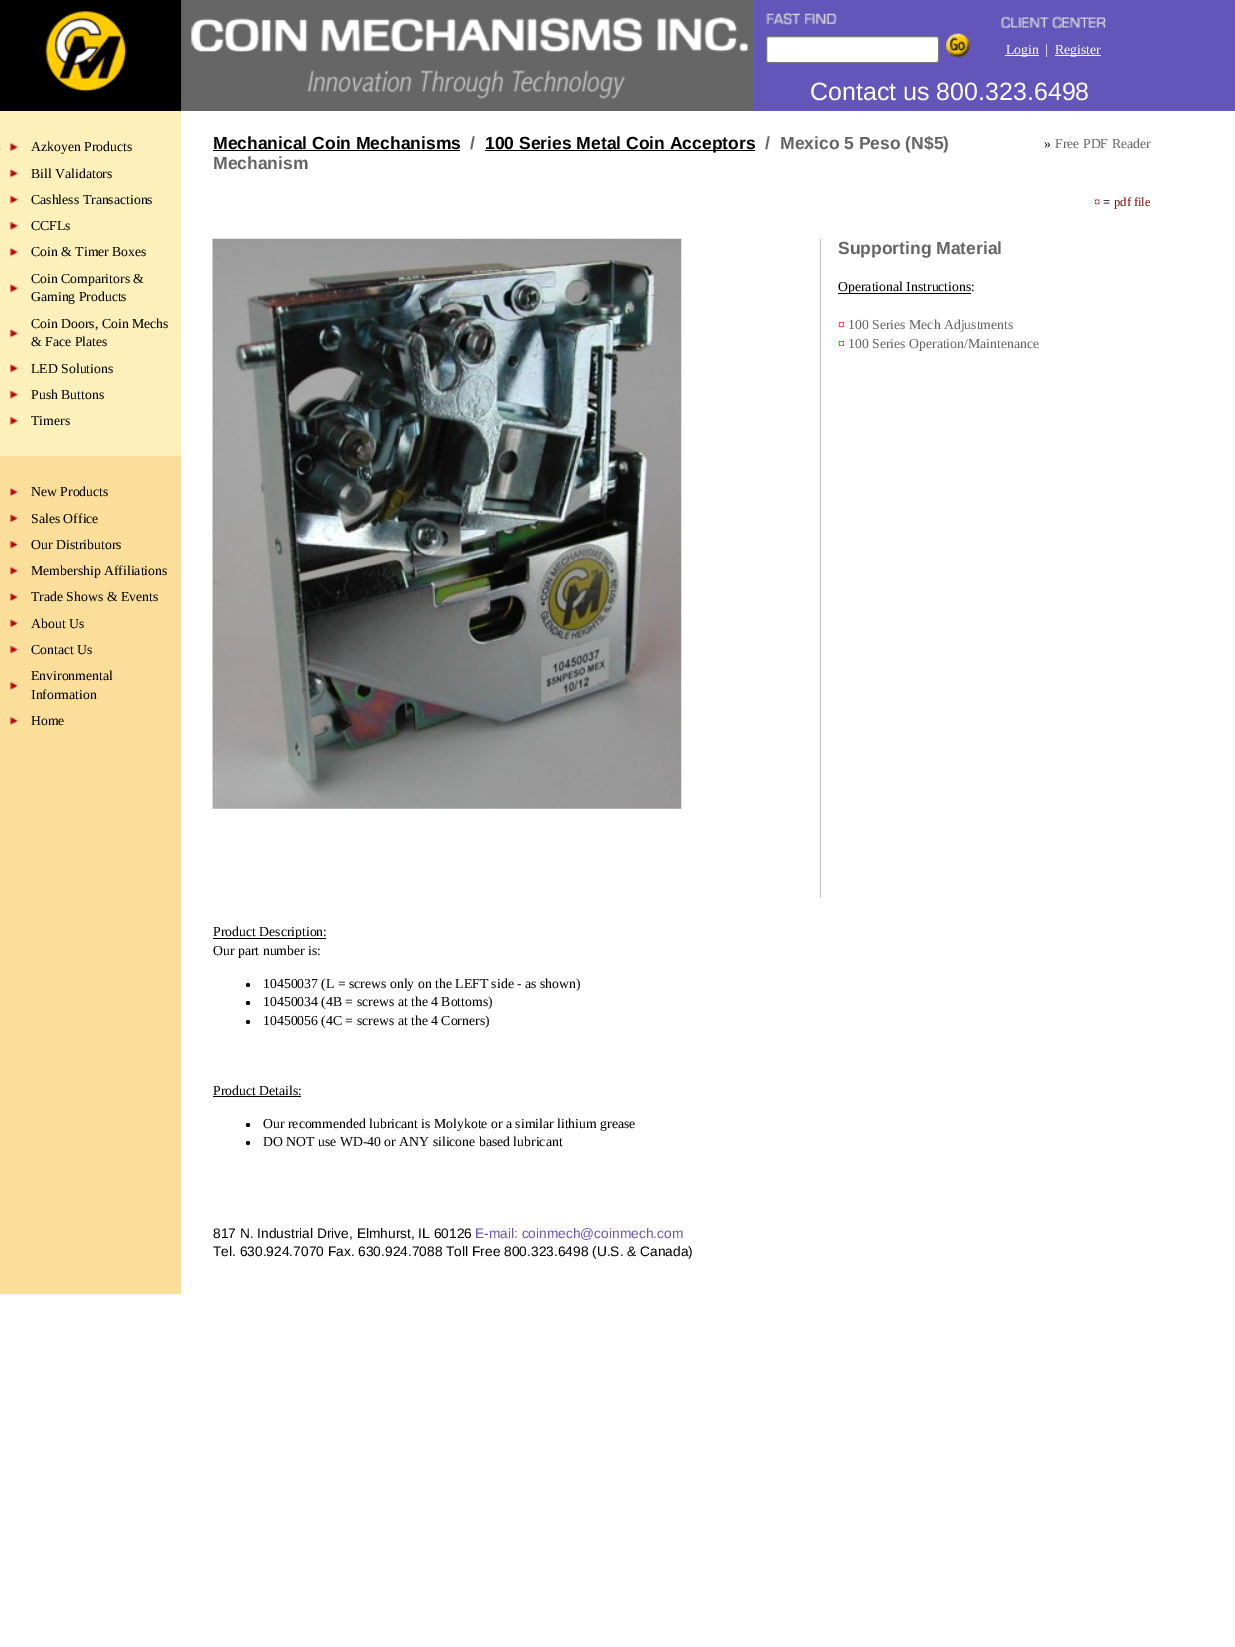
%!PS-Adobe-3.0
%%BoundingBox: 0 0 1235 1647
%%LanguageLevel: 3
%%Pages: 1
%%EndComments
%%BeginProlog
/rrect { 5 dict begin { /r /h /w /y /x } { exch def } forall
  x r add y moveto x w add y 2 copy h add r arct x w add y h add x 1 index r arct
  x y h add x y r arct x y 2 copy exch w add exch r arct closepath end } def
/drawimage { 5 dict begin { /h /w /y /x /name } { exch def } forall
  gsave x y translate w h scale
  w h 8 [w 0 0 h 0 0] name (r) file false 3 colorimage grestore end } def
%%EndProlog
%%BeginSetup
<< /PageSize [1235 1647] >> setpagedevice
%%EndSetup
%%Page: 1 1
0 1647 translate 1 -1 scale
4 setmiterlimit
1 setgray
0 0 1235 1647 rectfill
0.392 0.333 0.729 setrgbcolor
754 0 481 111 rectfill
0 setgray
0 0 181 111 rectfill
0.4 setgray
181 0 573 111 rectfill
(images/1.raw) 45 0 137 107 drawimage
(images/2.raw) 181 0 567 106 drawimage
(images/3.raw) 766 12 71 13 drawimage
1 setgray
766.5 36.5 172 26 2 rrect gsave fill grestore
0.463 setgray
stroke
(images/4.raw) 946 33 24 25 drawimage
(images/5.raw) 1001 16 106 13 drawimage
1 setgray
1005 55 34 1 rectfill
1055 55 46 1 rectfill
0.992 0.941 0.729 setrgbcolor
0 111 181 345 rectfill
0.988 0.871 0.608 setrgbcolor
0 456 181 838 rectfill
(images/6.raw) 9 142 10 10 drawimage
(images/7.raw) 9 168 10 10 drawimage
(images/8.raw) 9 195 10 9 drawimage
(images/9.raw) 9 221 10 9 drawimage
(images/6.raw) 9 247 10 10 drawimage
(images/7.raw) 9 283 10 10 drawimage
(images/7.raw) 9 328 10 10 drawimage
(images/7.raw) 9 363 10 10 drawimage
(images/8.raw) 9 390 10 9 drawimage
(images/9.raw) 9 416 10 9 drawimage
(images/10.raw) 9 487 10 10 drawimage
(images/11.raw) 9 514 10 9 drawimage
(images/12.raw) 9 540 10 9 drawimage
(images/13.raw) 9 566 10 9 drawimage
(images/10.raw) 9 592 10 10 drawimage
(images/11.raw) 9 619 10 9 drawimage
(images/12.raw) 9 645 10 9 drawimage
(images/13.raw) 9 681 10 9 drawimage
(images/13.raw) 9 716 10 9 drawimage
0 setgray
213 150 247 1 rectfill
485 150 270 1 rectfill
(images/14.raw) 212 238 470 571 drawimage
0.753 setgray
820 239 1 659 rectfill
0 setgray
838 293 133 1 rectfill
213 938 113 1 rectfill
newpath 248 985 2 0 360 arc closepath fill
newpath 248 1003 2 0 360 arc closepath fill
newpath 248 1022 2 0 360 arc closepath fill
213 1096 88 1 rectfill
newpath 248 1125 2 0 360 arc closepath fill
newpath 248 1143 2 0 360 arc closepath fill
/LiberationSerif-Regular [13.75 0 0 -13.75 0 0] selectfont
1 setgray
1006 54 moveto (Login) show
1045 54 moveto (|) show
1055 54 moveto (Register) show
/LiberationSans-Regular [25 0 0 -25 0 0] selectfont
810 100 moveto (Contact us 800.323.6498) show
/LiberationSerif-Regular [13.75 0 0 -13.75 0 0] selectfont
0 setgray
31 151 moveto (Azkoyen Products) show
31 178 moveto (Bill Validators) show
31 204 moveto (Cashless Transactions) show
31 230 moveto (CCFLs) show
31 256 moveto (Coin & Timer Boxes) show
31 283 moveto (Coin Comparitors &) show
31 301 moveto (Gaming Products) show
31 328 moveto (Coin Doors, Coin Mechs) show
31 346 moveto (& Face Plates) show
31 373 moveto (LED Solutions) show
31 399 moveto (Push Buttons) show
31 425 moveto (Timers) show
31 496 moveto (New Products) show
31 523 moveto (Sales Office) show
31 549 moveto (Our Distributors) show
31 575 moveto (Membership Affiliations) show
31 601 moveto (Trade Shows & Events) show
31 628 moveto (About Us) show
31 654 moveto (Contact Us) show
31 680 moveto (Environmental) show
31 699 moveto (Information) show
31 725 moveto (Home) show
/LiberationSans-Bold [17.5 0 0 -17.5 0 0] selectfont
213 149 moveto (Mechanical Coin Mechanisms) show
0.388 0.396 0.388 setrgbcolor
470 149 moveto (/) show
0 setgray
485 149 moveto (100 Series Metal Coin Acceptors) show
0.388 0.396 0.388 setrgbcolor
765 149 moveto (/) show
780 149 moveto (Mexico 5 Peso \(N$5\)) show
213 169 moveto (Mechanism) show
/LiberationSerif-Regular [13.75 0 0 -13.75 0 0] selectfont
0 setgray
1044 148 moveto (») show
0.388 0.396 0.388 setrgbcolor
1055 148 moveto (Free PDF Reader) show
/LiberationSerif-Regular [12.5 0 0 -12.5 0 0] selectfont
0.502 0 0 setrgbcolor
1094 206 moveto (¤) show
0 setgray
1103 206 moveto (=) show
0.502 0 0 setrgbcolor
1114 206 moveto (pdf file) show
/LiberationSans-Bold [17.5 0 0 -17.5 0 0] selectfont
0.388 0.396 0.388 setrgbcolor
838 254 moveto (Supporting Material) show
/LiberationSerif-Regular [13.75 0 0 -13.75 0 0] selectfont
0 setgray
838 291 moveto (Operational Instructions:) show
1 0 0 setrgbcolor
838 329 moveto (¤) show
0.388 0.396 0.388 setrgbcolor
848 329 moveto (100 Series Mech Adjustments) show
1 0 0 setrgbcolor
838 348 moveto (¤) show
0.388 0.396 0.388 setrgbcolor
848 348 moveto (100 Series Operation/Maintenance) show
0 setgray
213 936 moveto (Product Description:) show
213 955 moveto (Our part number is:) show
263 988 moveto (10450037 \(L = screws only on the LEFT side - as shown\)) show
263 1006 moveto (10450034 \(4B = screws at the 4 Bottoms\)) show
263 1025 moveto (10450056 \(4C = screws at the 4 Corners\)) show
213 1095 moveto (Product Details:) show
263 1128 moveto (Our recommended lubricant is Molykote or a similar lithium grease) show
263 1146 moveto (DO NOT use WD-40 or ANY silicone based lubricant) show
/LiberationSans-Regular [13.75 0 0 -13.75 0 0] selectfont
213 1238 moveto (817 N. Industrial Drive, Elmhurst, IL 60126) show
0.392 0.333 0.729 setrgbcolor
475 1238 moveto (E-mail: coinmech@coinmech.com) show
0 setgray
213 1256 moveto (Tel. 630.924.7070 Fax. 630.924.7088 Toll Free 800.323.6498 \(U.S. & Canada\)) show
showpage
%%EOF
